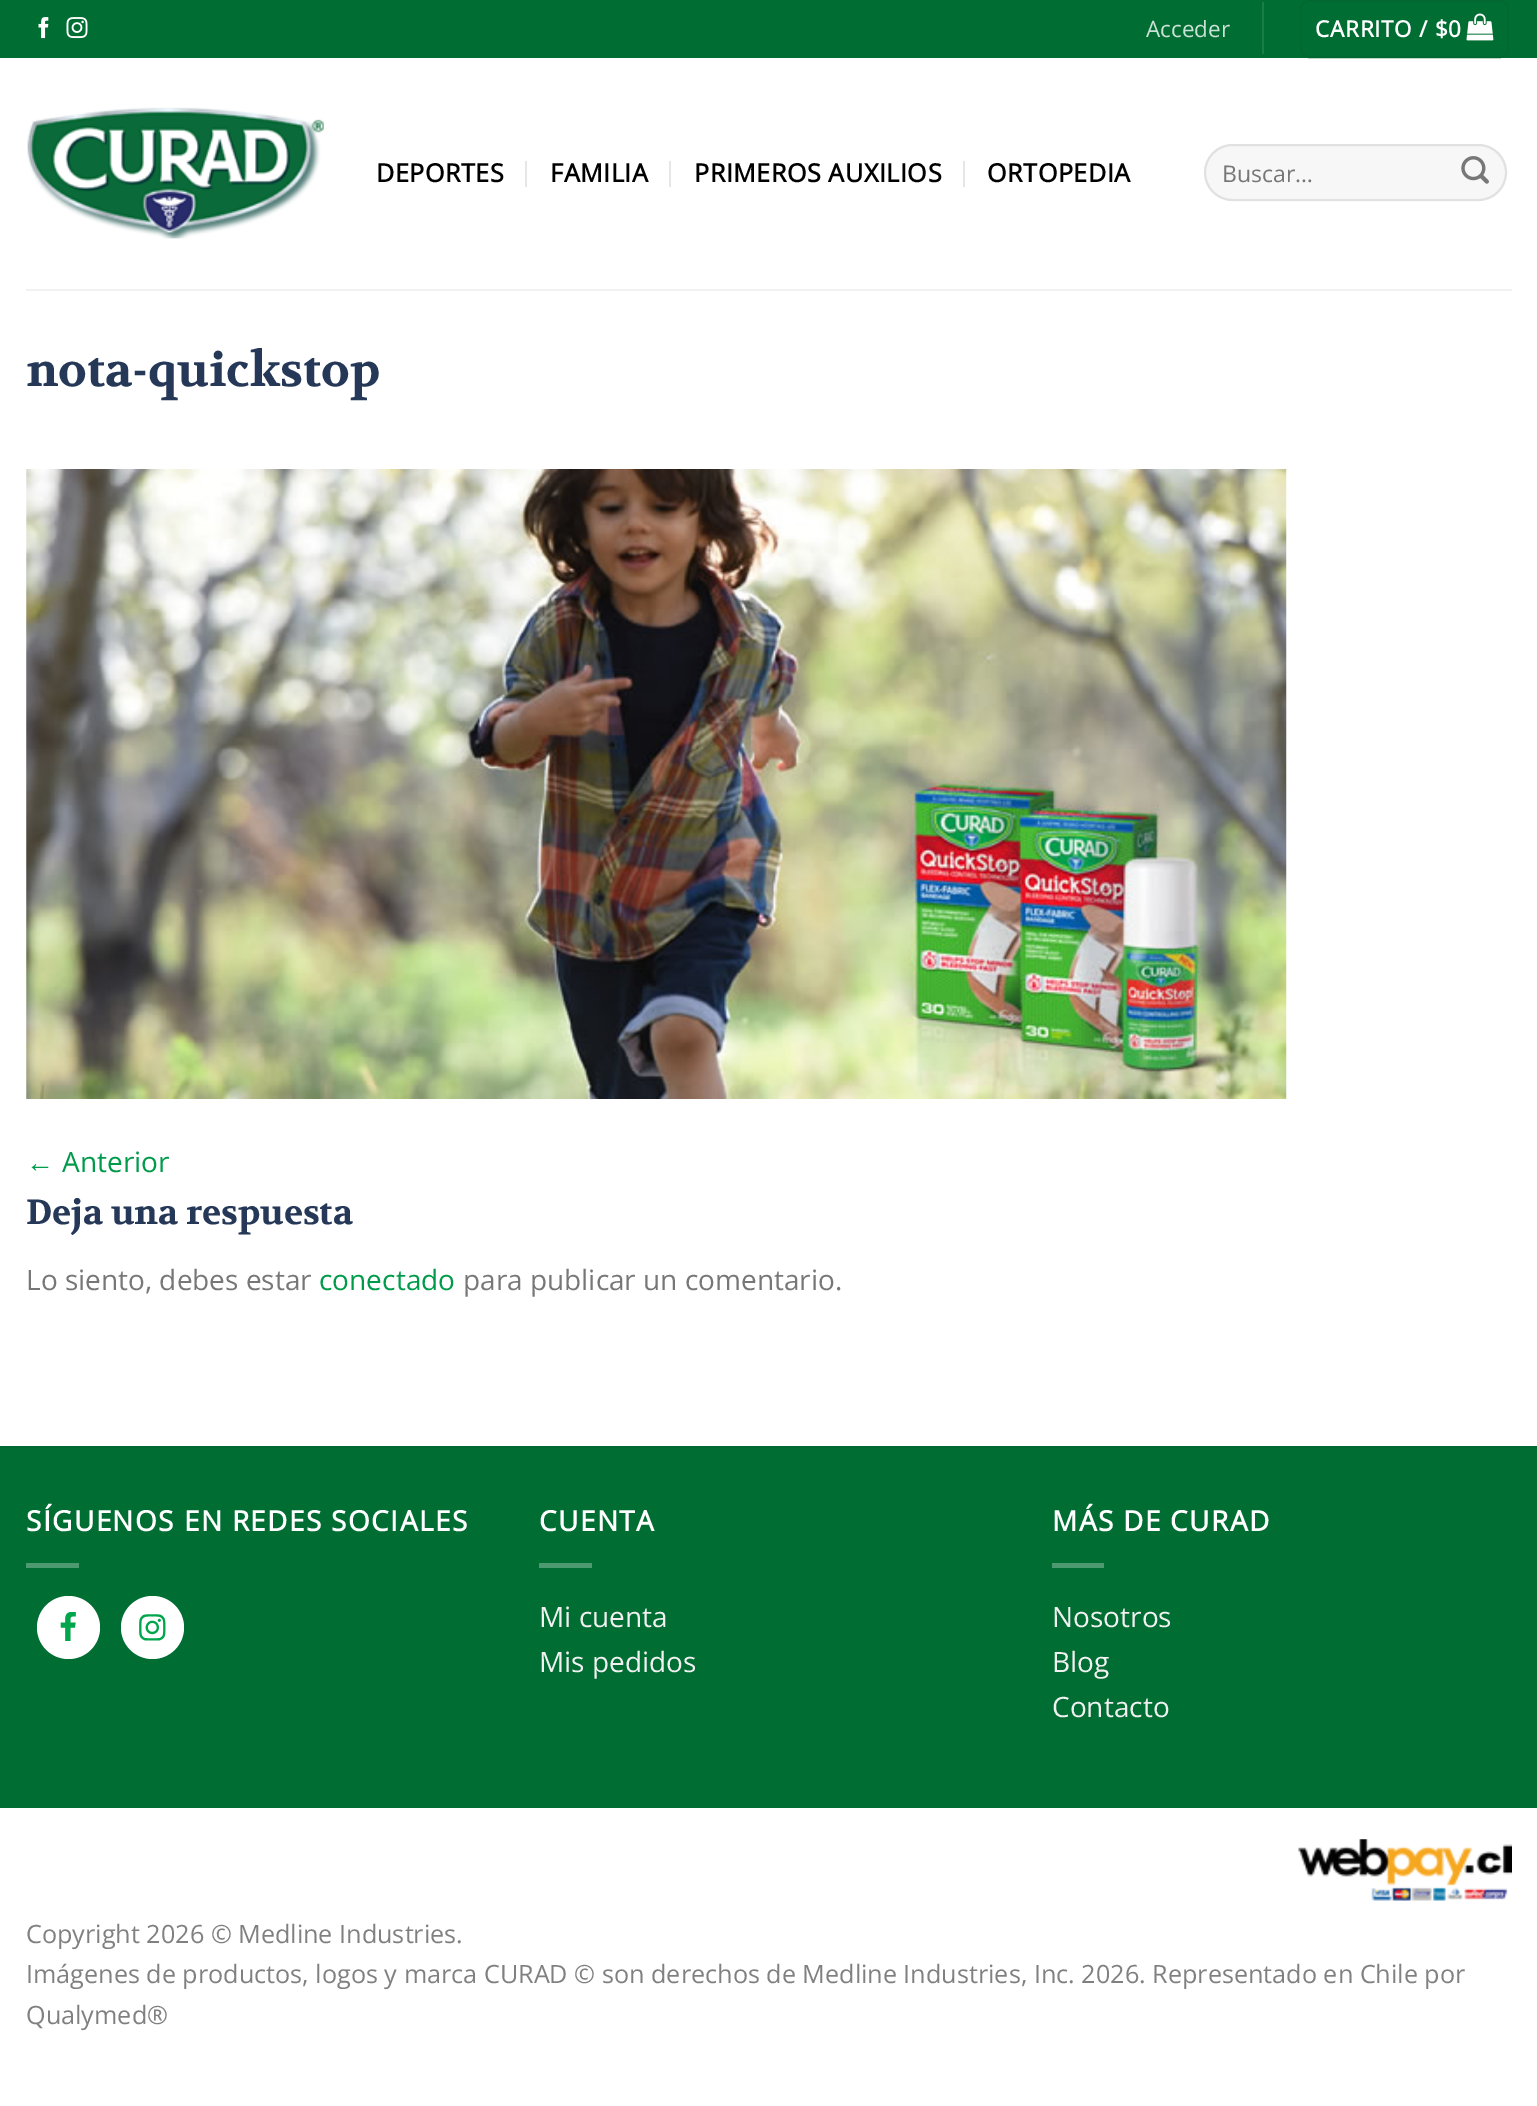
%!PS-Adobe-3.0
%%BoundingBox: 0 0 1537 2106
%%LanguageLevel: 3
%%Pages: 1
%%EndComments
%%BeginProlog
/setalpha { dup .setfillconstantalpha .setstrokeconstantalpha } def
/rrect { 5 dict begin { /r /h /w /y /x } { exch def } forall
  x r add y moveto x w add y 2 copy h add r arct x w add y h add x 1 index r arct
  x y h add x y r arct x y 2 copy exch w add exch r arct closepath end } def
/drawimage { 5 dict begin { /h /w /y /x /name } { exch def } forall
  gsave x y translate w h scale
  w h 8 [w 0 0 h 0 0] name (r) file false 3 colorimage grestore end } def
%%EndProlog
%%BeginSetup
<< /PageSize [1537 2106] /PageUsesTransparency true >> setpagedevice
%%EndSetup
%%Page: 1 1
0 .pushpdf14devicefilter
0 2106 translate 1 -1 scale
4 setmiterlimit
1 setgray
0 0 1537 2106 rectfill
0 0.427 0.2 setrgbcolor
0 0 1537 58 rectfill
(images/1.raw) 38 17 11 22 drawimage
(images/2.raw) 66 17 22 22 drawimage
0.102 0.486 0.278 setrgbcolor
1262 2 2 52 rectfill
0 0.408 0.188 setrgbcolor
2 setlinewidth
1301 1 207 56 8 rrect stroke
(images/3.raw) 1466 13 28 28 drawimage
(images/4.raw) 27 107 297 132 drawimage
0.902 setgray
525 161 2 26 rectfill
669 161 2 26 rectfill
963 161 2 26 rectfill
0.969 setgray
1204 144 303 57 28.5 rrect fill
0.09 setalpha
0 setgray
1205 145 301 55 27.5 rrect stroke
1 setalpha
(images/5.raw) 1461 156 28 28 drawimage
0.945 setgray
26 289 1486 2 rectfill
(images/6.raw) 26 469 1261 630 drawimage
0 0.427 0.2 setrgbcolor
0 1448 1537 360 rectfill
0 0.408 0.188 setrgbcolor
0 1446 1537 2 rectfill
0.302 0.6 0.439 setrgbcolor
26 1563 53 5 rectfill
1 setgray
newpath 68.5 1627.5 31.5 0 360 arc closepath fill
(images/7.raw) 60 1612 16 29 drawimage
newpath 152.5 1627.5 31.5 0 360 arc closepath fill
(images/8.raw) 139 1614 27 27 drawimage
0.302 0.6 0.439 setrgbcolor
539 1563 53 5 rectfill
1052 1563 52 5 rectfill
(images/9.raw) 1298 1839 214 62 drawimage
/OpenSans-Regular [22.5 0 0 -22.5 0 0] selectfont
0.8 0.886 0.839 setrgbcolor
1146 37 moveto (Acceder) show
/OpenSans-Bold [22.5 0 0 -22.5 0 0] selectfont
1 setgray
1315 37 moveto 0.75 0 (CARRITO / $0) ashow
/OpenSans-Bold [25.2 0 0 -25.2 0 0] selectfont
0 setgray
376 182 moveto 0.5 0 (DEPORTES) ashow
550 182 moveto 0.5 0 (FAMILIA) ashow
694 182 moveto 0.5 0 (PRIMEROS AUXILIOS) ashow
987 182 moveto 0.5 0 (ORTOPEDIA) ashow
/OpenSans-Regular [23 0 0 -23 0 0] selectfont
0.467 setgray
1222 182 moveto (Buscar…) show
/Volkhov-Bold [47.5 0 0 -47.5 0 0] selectfont
0.145 0.22 0.345 setrgbcolor
26 386 moveto (nota-quickstop) show
/LiberationSans-Regular [28 0 0 -28 0 0] selectfont
0 0.604 0.294 setrgbcolor
26 1172 moveto (←) show
/OpenSans-Regular [28 0 0 -28 0 0] selectfont
62 1172 moveto (Anterior) show
/Volkhov-Bold [35 0 0 -35 0 0] selectfont
0.145 0.22 0.345 setrgbcolor
26 1224 moveto (Deja una respuesta) show
/OpenSans-Regular [28 0 0 -28 0 0] selectfont
0.467 setgray
26 1290 moveto (Lo siento, debes estar) show
0 0.604 0.294 setrgbcolor
319 1290 moveto (conectado) show
0.467 setgray
463 1290 moveto (para publicar un comentario.) show
/OpenSans-Bold [28 0 0 -28 0 0] selectfont
1 setgray
26 1531 moveto 1.4 0 (SÍGUENOS EN REDES SOCIALES) ashow
539 1531 moveto 1.4 0 (CUENTA) ashow
/OpenSans-Regular [28 0 0 -28 0 0] selectfont
0.945 setgray
539 1627 moveto (Mi cuenta) show
539 1672 moveto (Mis pedidos) show
/OpenSans-Bold [28 0 0 -28 0 0] selectfont
1 setgray
1052 1531 moveto 1.4 0 (MÁS DE CURAD) ashow
/OpenSans-Regular [28 0 0 -28 0 0] selectfont
0.945 setgray
1052 1627 moveto (Nosotros) show
1052 1672 moveto (Blog) show
1052 1717 moveto (Contacto) show
/OpenSans-Regular [25.2 0 0 -25.2 0 0] selectfont
0.502 setgray
26 1943 moveto (Copyright 2026 © Medline Industries.) show
26 1983 moveto (Imágenes de productos, logos y marca CURAD © son derechos de Medline Industries, Inc. 2026. Representado en Chile por) show
26 2024 moveto (Qualymed®) show
.poppdf14devicefilter showpage
%%EOF
